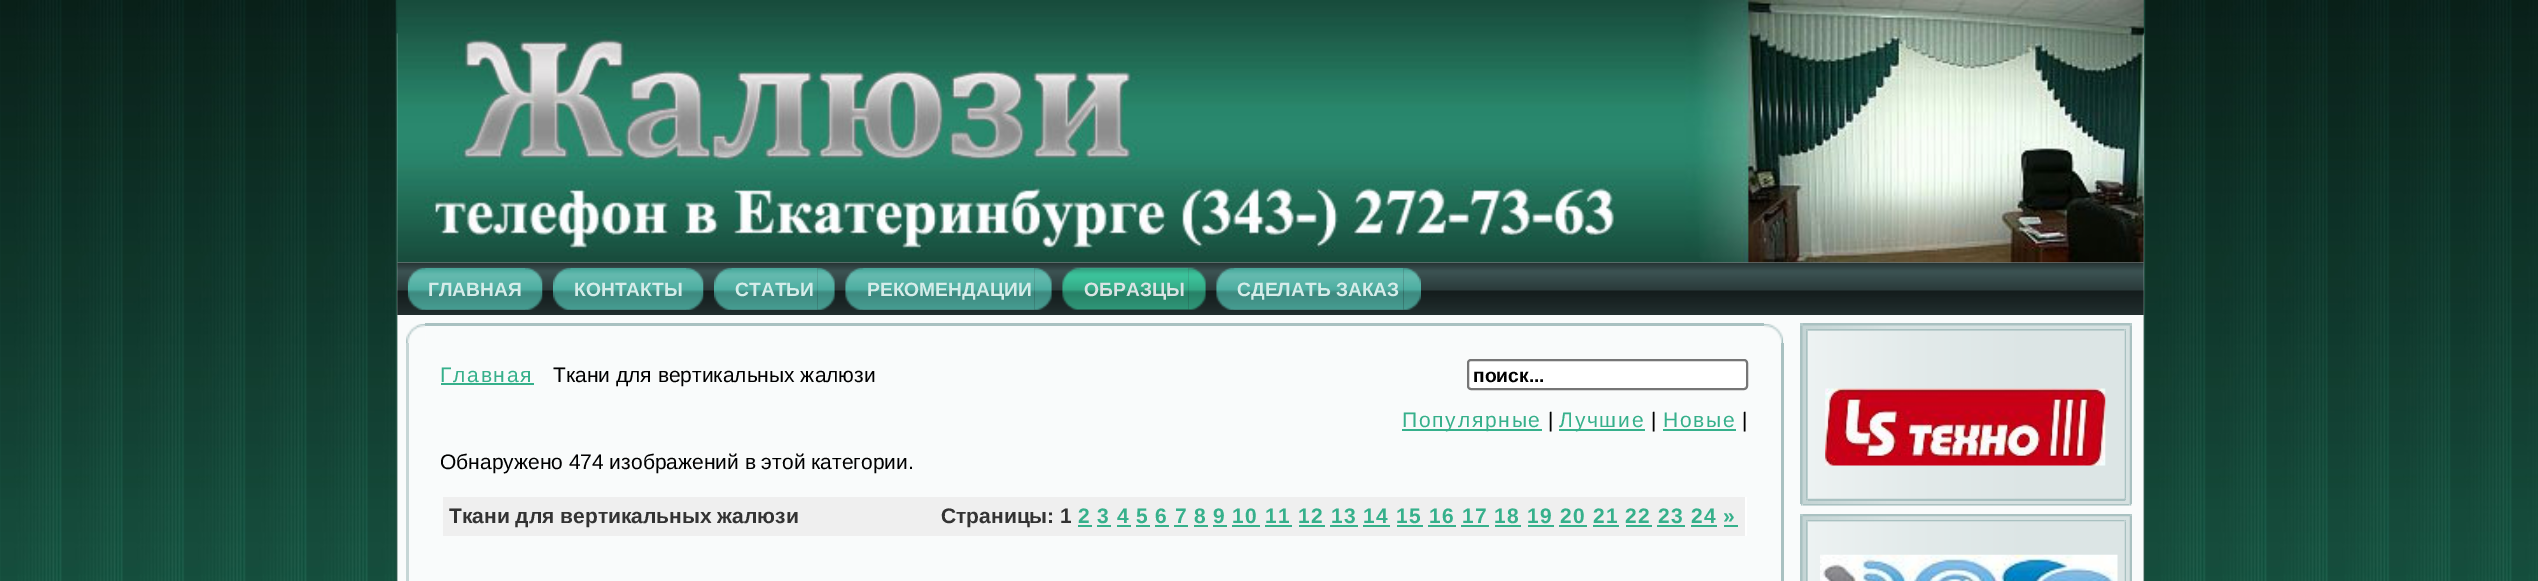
%!PS-Adobe-3.0
%%BoundingBox: 0 0 2538 581
%%LanguageLevel: 3
%%Pages: 1
%%EndComments
%%BeginProlog
/rrect { 5 dict begin { /r /h /w /y /x } { exch def } forall
  x r add y moveto x w add y 2 copy h add r arct x w add y h add x 1 index r arct
  x y h add x y r arct x y 2 copy exch w add exch r arct closepath end } def
/drawimage { 5 dict begin { /h /w /y /x /name } { exch def } forall
  gsave x y translate w h scale
  w h 8 [w 0 0 h 0 0] name (r) file false 3 colorimage grestore end } def
%%EndProlog
%%BeginSetup
<< /PageSize [2538 581] >> setpagedevice
%%EndSetup
%%Page: 1 1
0 581 translate 1 -1 scale
4 setmiterlimit
1 setgray
0 0 2538 581 rectfill
(images/1.raw) 0 0 2538 581 drawimage
(images/2.raw) 395 0 3 35 drawimage
(images/3.raw) 2143 0 3 35 drawimage
(images/4.raw) 395 35 37 546 drawimage
0.976 0.984 0.984 setrgbcolor
432 262 1677 319 rectfill
(images/5.raw) 2109 35 37 546 drawimage
(images/6.raw) 397 0 1747 263 drawimage
(images/7.raw) 397 262 1747 53 drawimage
(images/8.raw) 407 267 118 43 drawimage
(images/9.raw) 525 267 18 43 drawimage
(images/10.raw) 553 267 133 43 drawimage
(images/9.raw) 686 267 18 43 drawimage
(images/11.raw) 714 267 104 43 drawimage
(images/12.raw) 817 267 18 43 drawimage
(images/13.raw) 845 267 190 43 drawimage
(images/12.raw) 1034 267 18 43 drawimage
(images/14.raw) 1062 267 127 43 drawimage
(images/15.raw) 1188 267 18 43 drawimage
(images/16.raw) 1216 267 188 43 drawimage
(images/17.raw) 1403 267 18 43 drawimage
(images/18.raw) 406 323 20 20 drawimage
0.663 0.757 0.757 setrgbcolor
425 323 1339 3 rectfill
(images/19.raw) 1764 323 20 20 drawimage
0.776 0.839 0.839 setrgbcolor
406 343 3 238 rectfill
0.212 0.69 0.545 setrgbcolor
441 383 93 2 rectfill
1 setgray
1468 360 279 29 3 rrect gsave fill grestore
0.463 setgray
2 setlinewidth
stroke
0.212 0.69 0.545 setrgbcolor
1402 429 140 2 rectfill
1559 429 86 2 rectfill
1663 429 73 2 rectfill
0.937 setgray
443 497 1302 39 rectfill
1 setgray
1745 497 2 39 rectfill
0.212 0.69 0.545 setrgbcolor
1078 525 14 2 rectfill
1097 525 14 2 rectfill
1117 525 14 2 rectfill
1136 525 14 2 rectfill
1155 525 14 2 rectfill
1174 525 14 2 rectfill
1194 525 14 2 rectfill
1213 525 14 2 rectfill
1232 525 28 2 rectfill
1265 525 27 2 rectfill
1299 525 26 2 rectfill
1330 525 28 2 rectfill
1363 525 27 2 rectfill
1397 525 26 2 rectfill
1428 525 28 2 rectfill
1461 525 28 2 rectfill
1495 525 26 2 rectfill
1528 525 26 2 rectfill
1559 525 28 2 rectfill
1593 525 26 2 rectfill
1626 525 26 2 rectfill
1657 525 28 2 rectfill
1691 525 26 2 rectfill
1724 525 14 2 rectfill
0.663 0.757 0.757 setrgbcolor
1781 343 3 238 rectfill
0.702 0.792 0.792 setrgbcolor
1800 323 3 3 rectfill
0.71 0.792 0.792 setrgbcolor
2129 323 3 3 rectfill
0.663 0.757 0.757 setrgbcolor
1803 323 327 3 rectfill
1800 326 3 178 rectfill
2129 326 3 178 rectfill
(images/20.raw) 1802 325 328 179 drawimage
(images/21.raw) 1806 329 2 2 drawimage
(images/23.raw) 2124 329 2 2 drawimage
(images/22.raw) 1808 329 317 2 drawimage
(images/28.raw) 1806 498 2 3 drawimage
(images/25.raw) 1806 331 2 168 drawimage
1808 498 317 3 rectfill
(images/29.raw) 2125 498 1 3 drawimage
(images/27.raw) 2124 331 2 168 drawimage
(images/24.raw) 1807 330 318 169 drawimage
(images/26.raw) 1825 388 281 78 drawimage
(images/30.raw) 1800 504 3 2 drawimage
(images/32.raw) 2129 504 3 2 drawimage
(images/31.raw) 1802 504 328 2 drawimage
0.698 0.796 0.796 setrgbcolor
1800 514 3 2 rectfill
0.71 0.796 0.796 setrgbcolor
2129 514 3 2 rectfill
0.663 0.757 0.757 setrgbcolor
1803 514 327 3 rectfill
1800 516 3 65 rectfill
2129 516 3 65 rectfill
(images/33.raw) 1802 516 328 65 drawimage
(images/34.raw) 1806 520 2 2 drawimage
(images/37.raw) 2124 520 2 2 drawimage
(images/35.raw) 1808 520 317 2 drawimage
(images/36.raw) 1806 521 2 60 drawimage
(images/40.raw) 2124 521 2 60 drawimage
(images/38.raw) 1807 521 318 60 drawimage
(images/39.raw) 1820 554 298 27 drawimage
/LiberationSans-Bold [19.25 0 0 -19.25 0 0] selectfont
0.835 0.925 0.914 setrgbcolor
428 296 moveto (ГЛАВНАЯ) show
574 296 moveto (КОНТАКТЫ) show
735 296 moveto (СТАТЬИ) show
867 296 moveto (РЕКОМЕНДАЦИИ) show
0.851 0.89 0.89 setrgbcolor
1084 296 moveto (ОБРАЗЦЫ) show
0.835 0.925 0.914 setrgbcolor
1237 296 moveto (СДЕЛАТЬ ЗАКАЗ) show
/LiberationSans-Regular [21 0 0 -21 0 0] selectfont
0.212 0.69 0.545 setrgbcolor
440 382 moveto 1.75 0 (Главная) ashow
0 setgray
553 382 moveto (Ткани для вертикальных жалюзи) show
/LiberationSans-Bold [19.25 0 0 -19.25 0 0] selectfont
1473 382 moveto (поиск...) show
/LiberationSans-Regular [21 0 0 -21 0 0] selectfont
0.212 0.69 0.545 setrgbcolor
1402 427 moveto 1.75 0 (Популярные) ashow
0 setgray
1548 427 moveto (|) show
0.212 0.69 0.545 setrgbcolor
1559 427 moveto 1.75 0 (Лучшие) ashow
0 setgray
1651 427 moveto (|) show
0.212 0.69 0.545 setrgbcolor
1663 427 moveto 1.75 0 (Новые) ashow
0 setgray
1742 427 moveto (|) show
440 469 moveto (Обнаружено 474 изображений в этой категории.) show
/LiberationSans-Bold [21 0 0 -21 0 0] selectfont
0.2 setgray
449 523 moveto (Ткани для вертикальных жалюзи) show
941 523 moveto (Страницы: 1) show
0.212 0.69 0.545 setrgbcolor
1078 523 moveto 1.75 0 (2) ashow
1097 523 moveto 1.75 0 (3) ashow
1117 523 moveto 1.75 0 (4) ashow
1136 523 moveto 1.75 0 (5) ashow
1155 523 moveto 1.75 0 (6) ashow
1175 523 moveto 1.75 0 (7) ashow
1194 523 moveto 1.75 0 (8) ashow
1213 523 moveto 1.75 0 (9) ashow
1232 523 moveto 1.75 0 (10) ashow
1265 523 moveto 1.75 0 (11) ashow
1298 523 moveto 1.75 0 (12) ashow
1331 523 moveto 1.75 0 (13) ashow
1363 523 moveto 1.75 0 (14) ashow
1396 523 moveto 1.75 0 (15) ashow
1429 523 moveto 1.75 0 (16) ashow
1462 523 moveto 1.75 0 (17) ashow
1494 523 moveto 1.75 0 (18) ashow
1527 523 moveto 1.75 0 (19) ashow
1560 523 moveto 1.75 0 (20) ashow
1593 523 moveto 1.75 0 (21) ashow
1625 523 moveto 1.75 0 (22) ashow
1658 523 moveto 1.75 0 (23) ashow
1691 523 moveto 1.75 0 (24) ashow
1723 523 moveto 1.75 0 (») ashow
showpage
%%EOF
